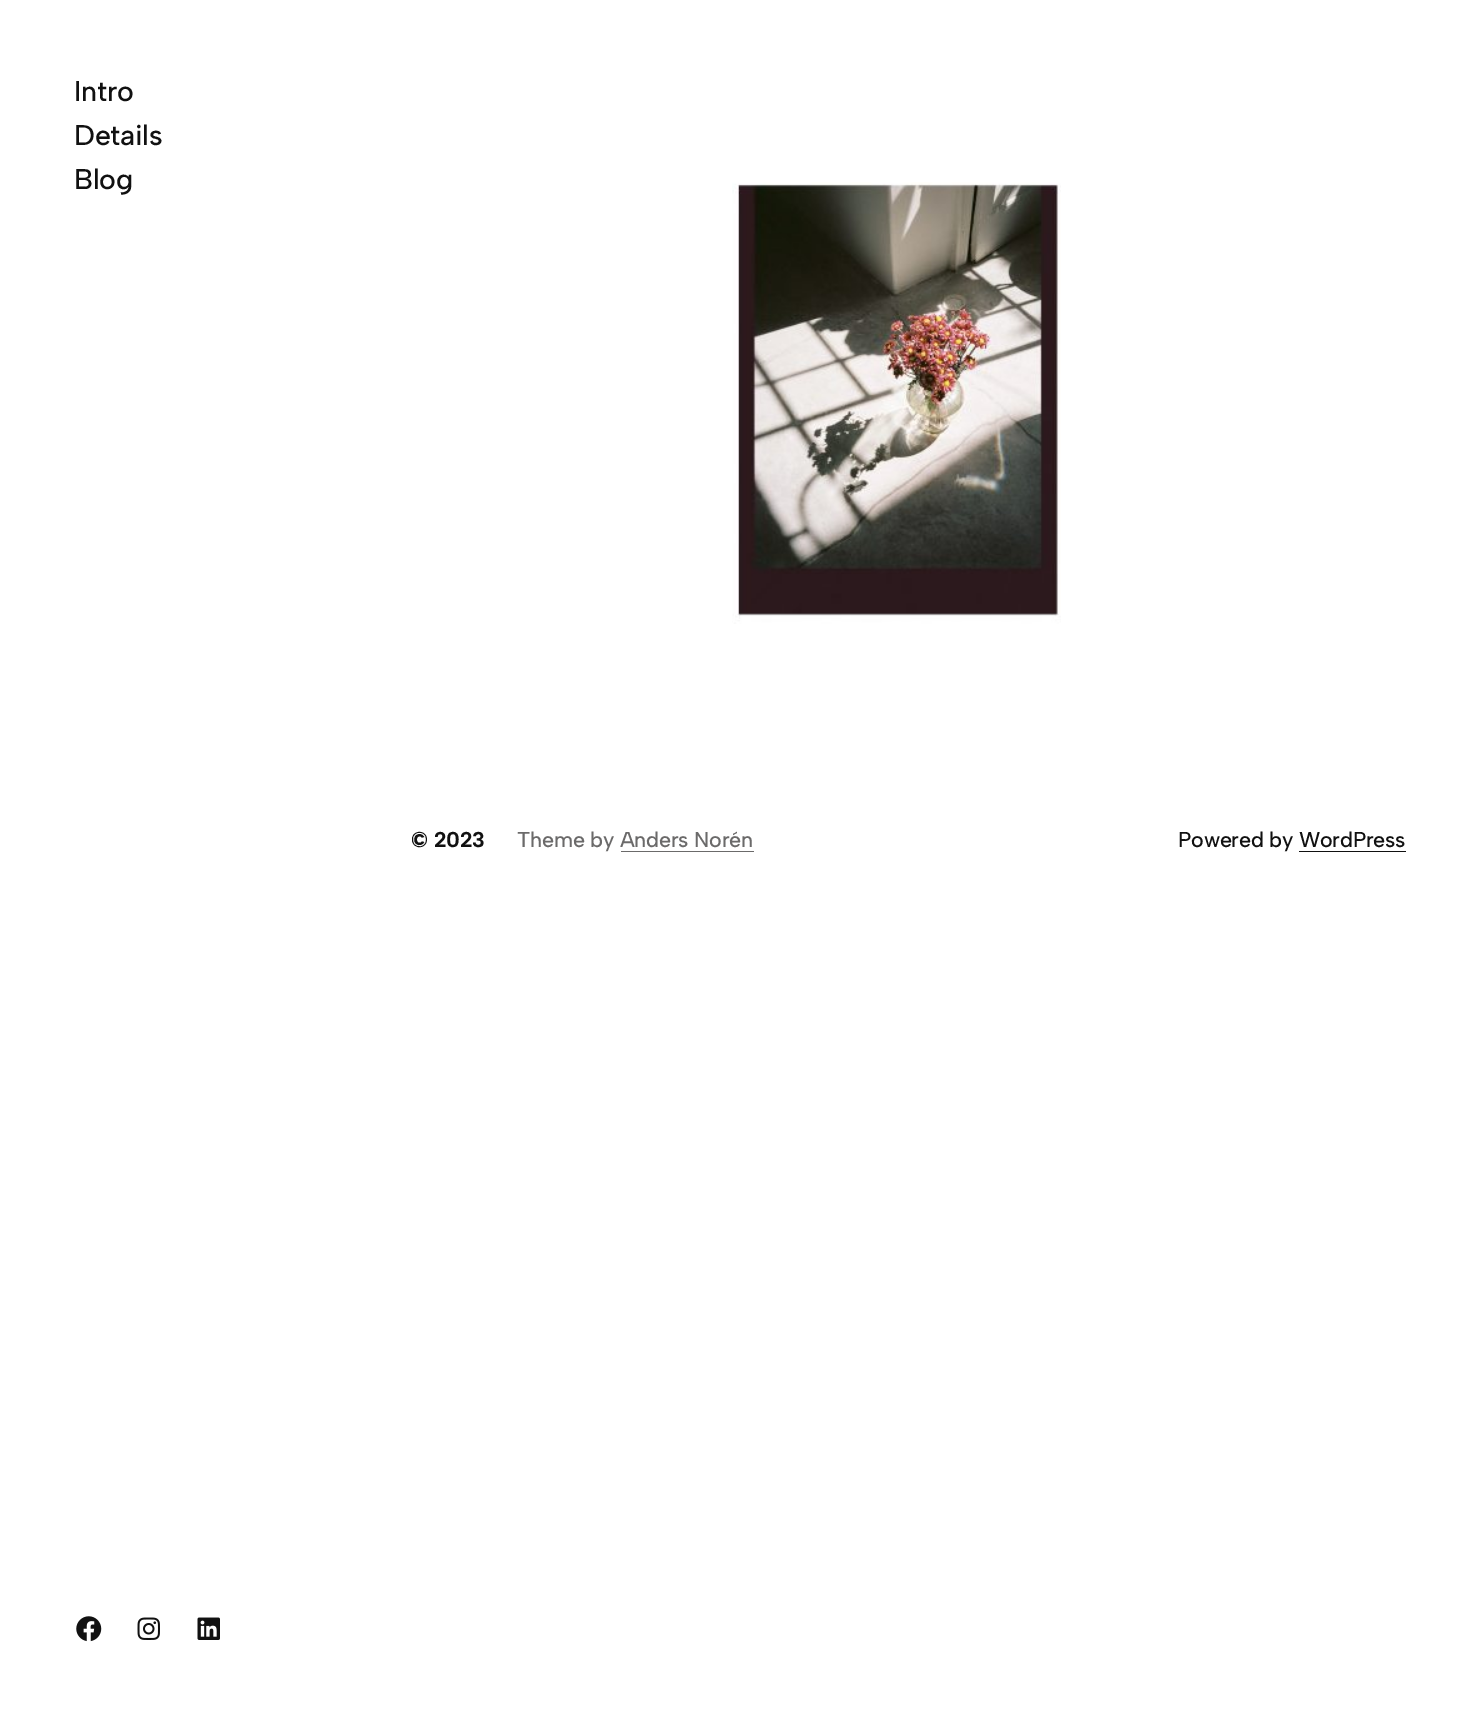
%!PS-Adobe-3.0
%%BoundingBox: 0 0 1479 1730
%%LanguageLevel: 3
%%Pages: 1
%%EndComments
%%BeginProlog
/drawimage { 5 dict begin { /h /w /y /x /name } { exch def } forall
  gsave x y translate w h scale
  w h 8 [w 0 0 h 0 0] name (r) file false 3 colorimage grestore end } def
%%EndProlog
%%BeginSetup
<< /PageSize [1479 1730] >> setpagedevice
%%EndSetup
%%Page: 1 1
0 1730 translate 1 -1 scale
4 setmiterlimit
1 setgray
0 0 1479 1730 rectfill
(images/1.raw) 76 1616 26 26 drawimage
(images/2.raw) 137 1617 23 23 drawimage
(images/3.raw) 197 1617 23 23 drawimage
(images/4.raw) 732 182 329 442 drawimage
0.42 0.416 0.416 setrgbcolor
621 851 133 1 rectfill
0.067 setgray
1299 851 107 1 rectfill
/AlbertSans-Medium [28.5 0 0 -28.5 0 0] selectfont
74 101 moveto -0.25 0 (Intro) ashow
74 145 moveto -0.25 0 (Details) ashow
74 189 moveto -0.25 0 (Blog) ashow
/AlbertSans-Bold [21.5 0 0 -21.5 0 0] selectfont
411 847 moveto -0.25 0 (© 2023) ashow
/AlbertSans-Medium [21.5 0 0 -21.5 0 0] selectfont
0.42 0.416 0.416 setrgbcolor
517 847 moveto -0.25 0 (Theme by Anders Norén) ashow
0.067 setgray
1178 847 moveto -0.25 0 (Powered by WordPress) ashow
showpage
%%EOF
